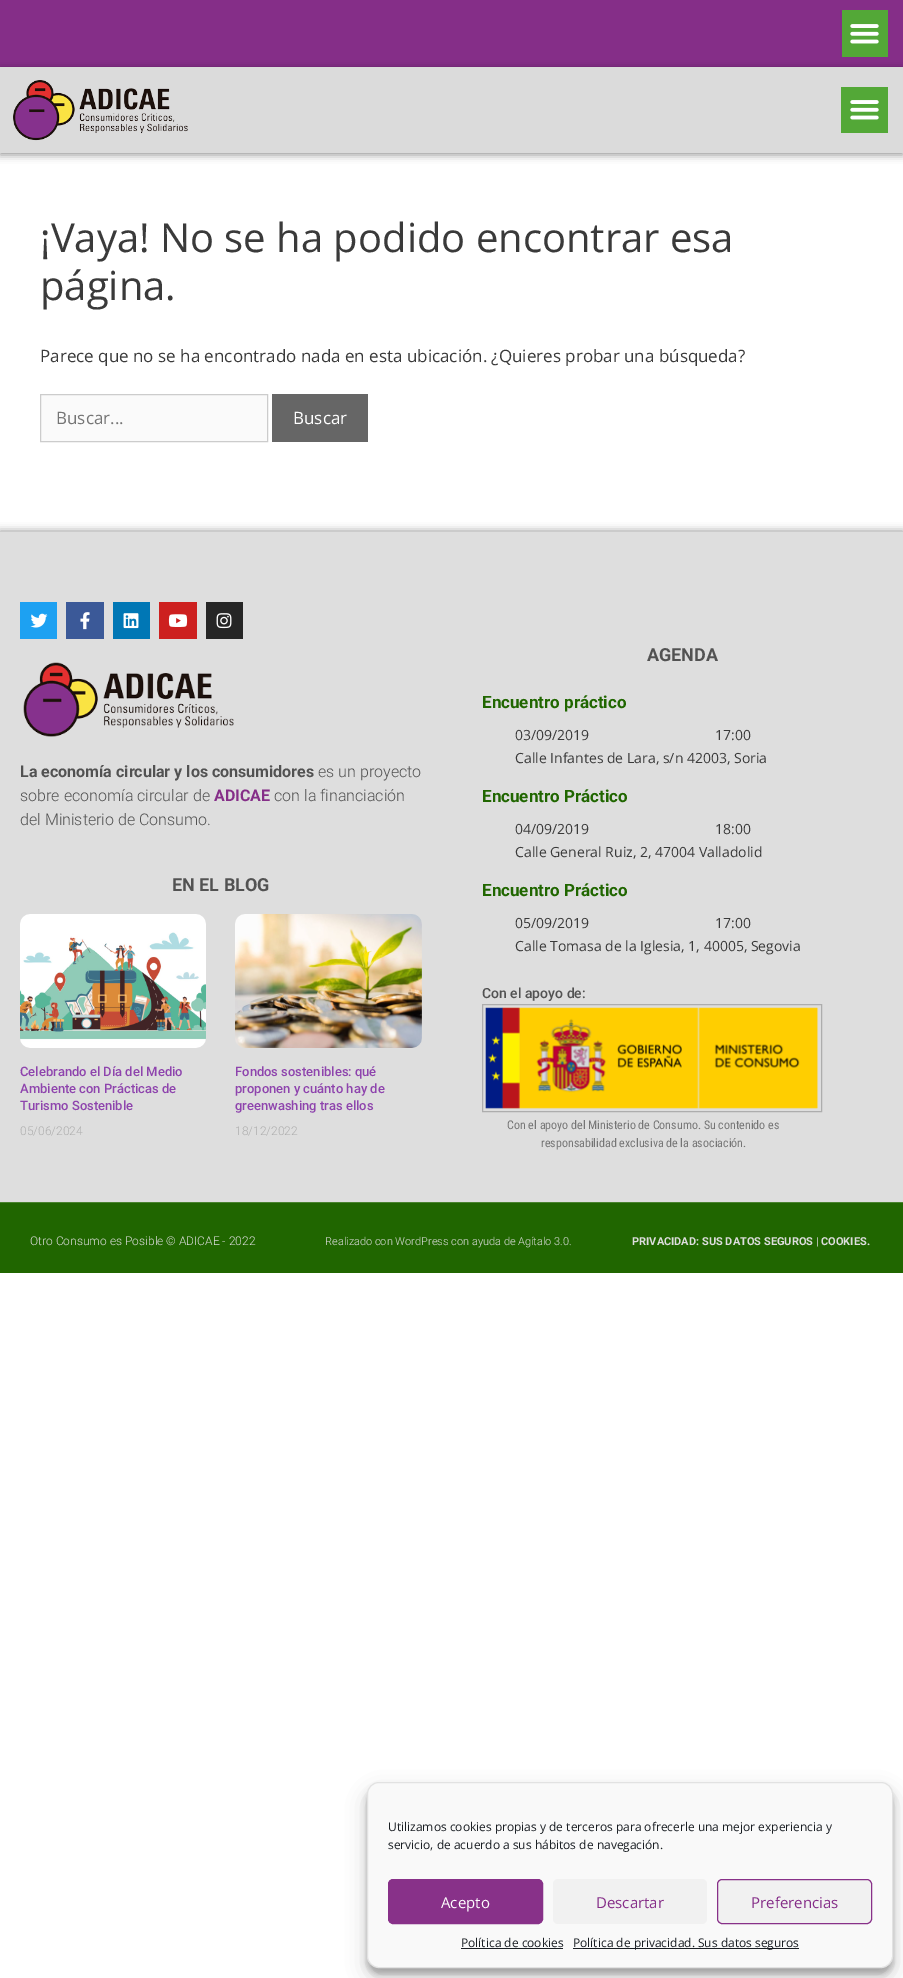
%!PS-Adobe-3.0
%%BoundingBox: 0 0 903 1978
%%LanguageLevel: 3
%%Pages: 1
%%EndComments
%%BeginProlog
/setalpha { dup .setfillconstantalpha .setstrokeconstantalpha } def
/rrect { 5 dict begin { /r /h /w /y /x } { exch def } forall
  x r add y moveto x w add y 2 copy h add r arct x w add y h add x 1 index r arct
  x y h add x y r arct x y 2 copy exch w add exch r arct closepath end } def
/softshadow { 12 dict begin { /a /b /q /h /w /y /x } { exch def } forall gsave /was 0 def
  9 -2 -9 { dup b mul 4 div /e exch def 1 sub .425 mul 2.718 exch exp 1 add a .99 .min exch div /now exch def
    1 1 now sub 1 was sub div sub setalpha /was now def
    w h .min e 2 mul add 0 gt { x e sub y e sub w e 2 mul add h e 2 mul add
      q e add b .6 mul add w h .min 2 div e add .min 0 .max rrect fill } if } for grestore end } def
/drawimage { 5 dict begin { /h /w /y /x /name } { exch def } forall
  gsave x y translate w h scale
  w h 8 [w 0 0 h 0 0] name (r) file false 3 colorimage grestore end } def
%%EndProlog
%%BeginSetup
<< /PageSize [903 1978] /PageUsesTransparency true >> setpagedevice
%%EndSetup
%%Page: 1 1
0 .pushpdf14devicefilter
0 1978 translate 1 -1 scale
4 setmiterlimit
1 setgray
0 0 903 1978 rectfill
0.522 0.18 0.533 setrgbcolor
0 0 903 67 rectfill
0.325 0.659 0.216 setrgbcolor
842 10 46 47 rectfill
(images/1.raw) 850 24 29 20 drawimage
0 setgray
0 69 903 86 0 4 0.41 softshadow
0.859 setgray
0 67 903 86 rectfill
(images/2.raw) 13 80 175 61 drawimage
0.325 0.659 0.216 setrgbcolor
841 87 47 46 rectfill
(images/1.raw) 850 100 29 20 drawimage
0.98 setgray
newpath 40.5 394.5 moveto 267.5 394.5 lineto 267.5 441.5 lineto 40.5 441.5 lineto closepath gsave fill grestore
0.8 setgray
stroke
0.4 setgray
272 394 96 48 rectfill
0 setgray
0 531 903 670 0 4 0.41 softshadow
0.871 setgray
0 532 903 670 rectfill
0.114 0.631 0.949 setrgbcolor
20 602 37 37 rectfill
(images/3.raw) 30 613 18 15 drawimage
0.231 0.349 0.596 setrgbcolor
66 602 38 37 rectfill
(images/4.raw) 80 612 10 18 drawimage
0 0.467 0.71 setrgbcolor
113 602 37 37 rectfill
(images/5.raw) 123 613 16 16 drawimage
0.804 0.125 0.122 setrgbcolor
159 602 38 37 rectfill
(images/6.raw) 168 614 20 13 drawimage
0.149 setgray
206 602 37 37 rectfill
(images/7.raw) 216 613 16 16 drawimage
(images/8.raw) 23 662 211 75 drawimage
(images/9.raw) 20 914 186 134 drawimage
(images/10.raw) 235 914 187 134 drawimage
0.678 setgray
482.5 1004.5 339 107 rectstroke
(images/11.raw) 485 1007 334 102 drawimage
0.125 0.4 0 setrgbcolor
0 1203 903 70 rectfill
0.29 0.514 0.188 setrgbcolor
0 1202 903 1 rectfill
0 setgray
367 1788 526 186 12 3 0.23 softshadow
367 1792 526 186 12 10 0.19 softshadow
0.976 setgray
367.5 1782.5 525 185 11.5 rrect gsave fill grestore
0.886 setgray
stroke
0.533 0.192 0.537 setrgbcolor
388.5 1879.5 154 44 4.5 rrect gsave fill grestore
stroke
0.945 setgray
553 1879 154 45 5 rrect fill
717.5 1879.5 154 44 4.5 rrect gsave fill grestore
0.533 0.192 0.537 setrgbcolor
stroke
0.098 0.118 0.137 setrgbcolor
461 1948 102 1 rectfill
573 1948 226 1 rectfill
/OpenSans-Regular [40 0 0 -40 0 0] selectfont
0.227 setgray
40 252 moveto (¡Vaya! No se ha podido encontrar esa) show
40 300 moveto (página.) show
/OpenSans-Regular [17 0 0 -17 0 0] selectfont
40 362 moveto (Parece que no se ha encontrado nada en esta ubicación. ¿Quieres probar una búsqueda?) show
0.459 setgray
56 424 moveto (Buscar...) show
1 setgray
293 424 moveto (Buscar) show
/Roboto-Bold [16 0 0 -16 0 0] selectfont
0.322 setgray
20 777 moveto (La economía circular y los consumidores) show
/Roboto-Light [16 0 0 -16 0 0] selectfont
318 777 moveto (es un proyecto) show
20 801 moveto (sobre economía circular de) show
/Roboto-Bold [16 0 0 -16 0 0] selectfont
0.522 0.18 0.533 setrgbcolor
214 801 moveto (ADICAE) show
/Roboto-Light [16 0 0 -16 0 0] selectfont
0.322 setgray
274 801 moveto (con la financiación) show
20 825 moveto (del Ministerio de Consumo.) show
/Roboto-Bold [18 0 0 -18 0 0] selectfont
172 891 moveto (EN EL BLOG) show
/Roboto-Medium [13 0 0 -13 0 0] selectfont
0.557 0.267 0.678 setrgbcolor
20 1076 moveto (Celebrando el Día del Medio) show
20 1093 moveto (Ambiente con Prácticas de) show
20 1110 moveto (Turismo Sostenible) show
/Roboto-Light [12 0 0 -12 0 0] selectfont
0.678 setgray
20 1135 moveto (05/06/2024) show
/Roboto-Medium [13 0 0 -13 0 0] selectfont
0.557 0.267 0.678 setrgbcolor
235 1076 moveto (Fondos sostenibles: qué) show
235 1093 moveto (proponen y cuánto hay de) show
235 1110 moveto (greenwashing tras ellos) show
/Roboto-Light [12 0 0 -12 0 0] selectfont
0.678 setgray
235 1135 moveto (18/12/2022) show
/Roboto-Bold [18 0 0 -18 0 0] selectfont
0.322 setgray
647 661 moveto (AGENDA) show
/Roboto-Bold [17 0 0 -17 0 0] selectfont
0.125 0.4 0 setrgbcolor
482 708 moveto (Encuentro práctico) show
/OpenSans-Regular [14 0 0 -14 0 0] selectfont
0.227 setgray
515 740 moveto (03/09/2019) show
715 740 moveto (17:00) show
515 763 moveto (Calle Infantes de Lara, s/n 42003, Soria) show
/Roboto-Bold [17 0 0 -17 0 0] selectfont
0.125 0.4 0 setrgbcolor
482 802 moveto (Encuentro Práctico) show
/OpenSans-Regular [14 0 0 -14 0 0] selectfont
0.227 setgray
515 834 moveto (04/09/2019) show
715 834 moveto (18:00) show
515 857 moveto (Calle General Ruiz, 2, 47004 Valladolid) show
/Roboto-Bold [17 0 0 -17 0 0] selectfont
0.125 0.4 0 setrgbcolor
482 896 moveto (Encuentro Práctico) show
/OpenSans-Regular [14 0 0 -14 0 0] selectfont
0.227 setgray
515 928 moveto (05/09/2019) show
715 928 moveto (17:00) show
515 951 moveto (Calle Tomasa de la Iglesia, 1, 40005, Segovia) show
/Roboto-Medium [14 0 0 -14 0 0] selectfont
0.322 setgray
482 998 moveto (Con el apoyo de:) show
/RobotoCondensed-Regular [12 0 0 -12 0 0] selectfont
0.459 setgray
507 1129 moveto (Con el apoyo del Ministerio de Consumo. Su contenido es) show
541 1147 moveto (responsabilidad exclusiva de la asociación.) show
/Roboto-Light [12 0 0 -12 0 0] selectfont
0.867 setgray
30 1245 moveto (Otro Consumo es Posible © ADICAE - 2022) show
/Roboto-Light [11 0 0 -11 0 0] selectfont
325 1245 moveto (Realizado con WordPress con ayuda de Agítalo 3.0.) show
/Roboto-Bold [11 0 0 -11 0 0] selectfont
632 1245 moveto (PRIVACIDAD: SUS DATOS SEGUROS | COOKIES.) show
/OpenSans-Regular [12 0 0 -12 0 0] selectfont
0.098 0.118 0.137 setrgbcolor
388 1831 moveto (Utilizamos cookies propias y de terceros para ofrecerle una mejor experiencia y) show
388 1849 moveto (servicio, de acuerdo a sus hábitos de navegación.) show
/OpenSans-Regular [15 0 0 -15 0 0] selectfont
1 setgray
441 1908 moveto (Acepto) show
0.522 0.18 0.533 setrgbcolor
596 1908 moveto (Descartar) show
751 1908 moveto (Preferencias) show
/OpenSans-Regular [12 0 0 -12 0 0] selectfont
0.098 0.118 0.137 setrgbcolor
461 1947 moveto (Política de cookies) show
573 1947 moveto (Política de privacidad. Sus datos seguros) show
.poppdf14devicefilter showpage
%%EOF
